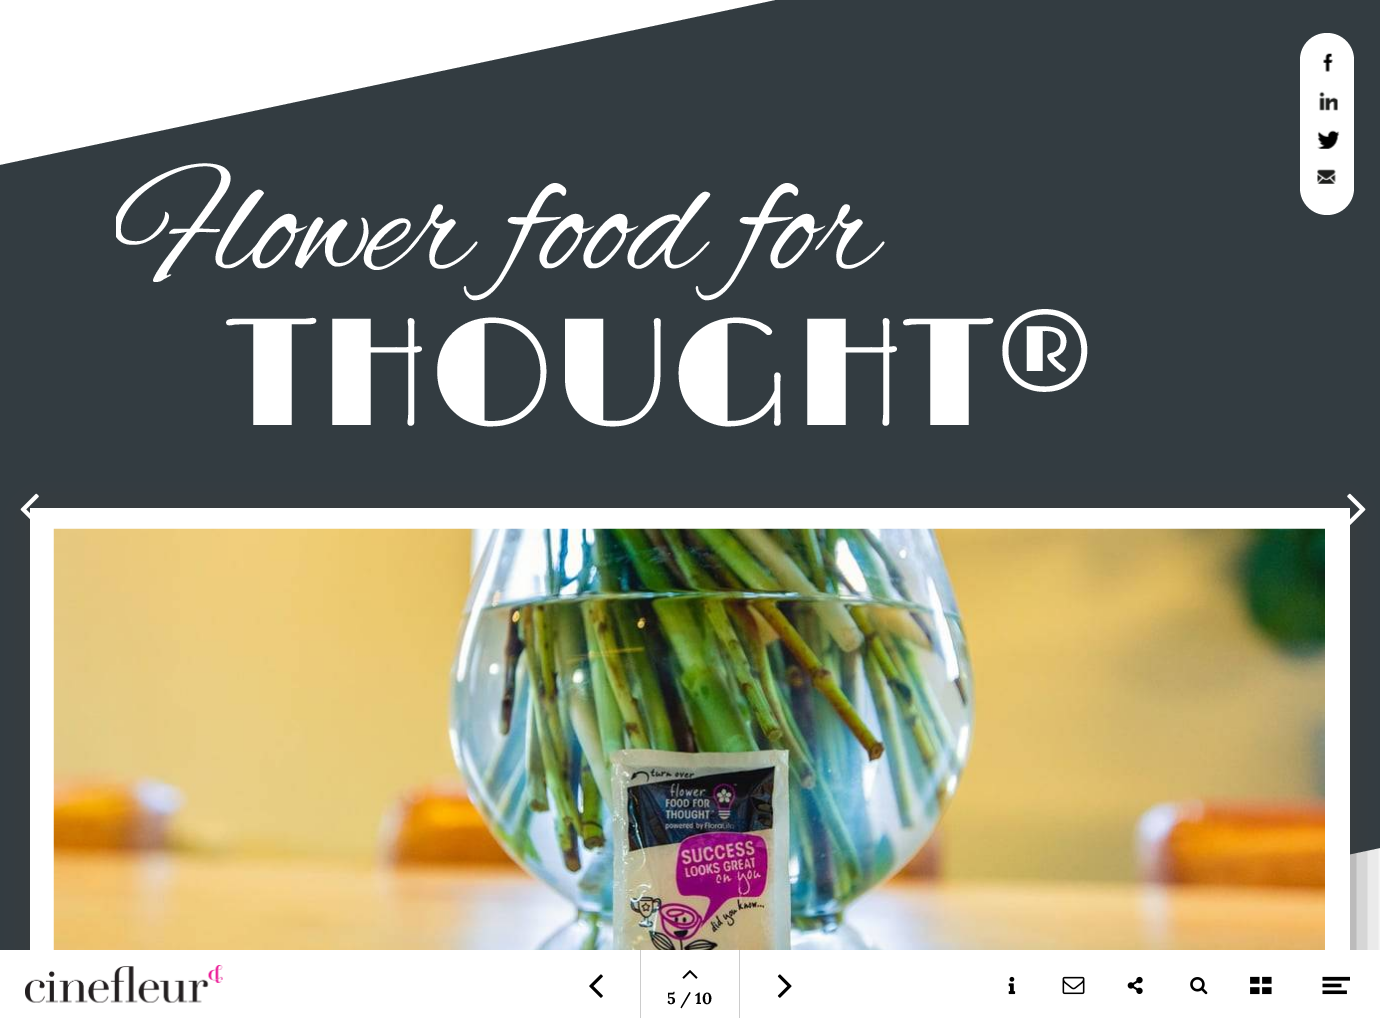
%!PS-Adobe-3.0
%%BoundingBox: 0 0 1380 1018
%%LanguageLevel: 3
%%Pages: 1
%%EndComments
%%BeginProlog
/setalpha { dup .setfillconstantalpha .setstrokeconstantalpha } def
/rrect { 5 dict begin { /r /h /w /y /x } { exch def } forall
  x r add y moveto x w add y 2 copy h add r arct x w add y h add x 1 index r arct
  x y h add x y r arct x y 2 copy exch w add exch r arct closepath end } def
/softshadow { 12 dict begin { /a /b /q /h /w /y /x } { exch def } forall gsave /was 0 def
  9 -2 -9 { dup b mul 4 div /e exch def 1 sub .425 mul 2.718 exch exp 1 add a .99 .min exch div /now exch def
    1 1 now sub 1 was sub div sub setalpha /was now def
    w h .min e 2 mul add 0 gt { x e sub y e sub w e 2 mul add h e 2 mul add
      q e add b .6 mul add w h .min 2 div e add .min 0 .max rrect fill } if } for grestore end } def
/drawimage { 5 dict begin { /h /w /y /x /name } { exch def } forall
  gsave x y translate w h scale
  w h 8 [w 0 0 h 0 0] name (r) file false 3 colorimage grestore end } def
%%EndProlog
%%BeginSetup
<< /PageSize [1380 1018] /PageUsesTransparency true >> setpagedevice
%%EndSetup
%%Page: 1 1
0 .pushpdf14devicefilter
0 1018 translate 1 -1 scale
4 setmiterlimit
1 setgray
0 0 1380 1018 rectfill
0.2 0.235 0.255 setrgbcolor
newpath -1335 449 moveto 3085 -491 lineto 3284 443 lineto -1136 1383 lineto closepath fill
1 setgray
1300 33 54 182 27 rrect fill
(images/1.raw) 1323 53 10 19 drawimage
(images/2.raw) 1319 91 19 20 drawimage
(images/3.raw) 1317 130 23 19 drawimage
(images/4.raw) 1317 169 19 15 drawimage
0.239 0.235 0.235 setrgbcolor
31 509 1320 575 0 22 0.69 softshadow
1 setgray
30 508 1320 442 rectfill
(images/5.raw) 53 528 1272 422 drawimage
(images/6.raw) 20 493 19 26 drawimage
(images/7.raw) 1347 493 19 32 drawimage
0 950 1380 68 rectfill
(images/8.raw) 25 965 198 38 drawimage
(images/9.raw) 1008 976 8 19 drawimage
(images/10.raw) 1062 976 23 19 drawimage
(images/11.raw) 1127 976 16 18 drawimage
(images/12.raw) 1190 977 18 18 drawimage
(images/13.raw) 1250 976 22 19 drawimage
(images/14.raw) 1322 976 28 19 drawimage
(images/15.raw) 589 974 14 24 drawimage
0.8 setgray
640 950 1 68 rectfill
739 950 1 68 rectfill
(images/16.raw) 777 974 15 24 drawimage
(images/17.raw) 682 970 16 9 drawimage
gsave
116 126 852 250 rectclip
/AlexBrush-Regular [157.5 0 0 -157.5 0 0] selectfont
1 setgray
116 268 moveto (Flower food for) show
grestore
/Limelight-Light [153.75 0 0 -153.75 0 0] selectfont
1 setgray
226 425 moveto (THOUGHT®) show
/Lora-Bold [16 0 0 -16 0 0] selectfont
0 setgray
667 1004 moveto (5 / 10) show
.poppdf14devicefilter showpage
%%EOF
